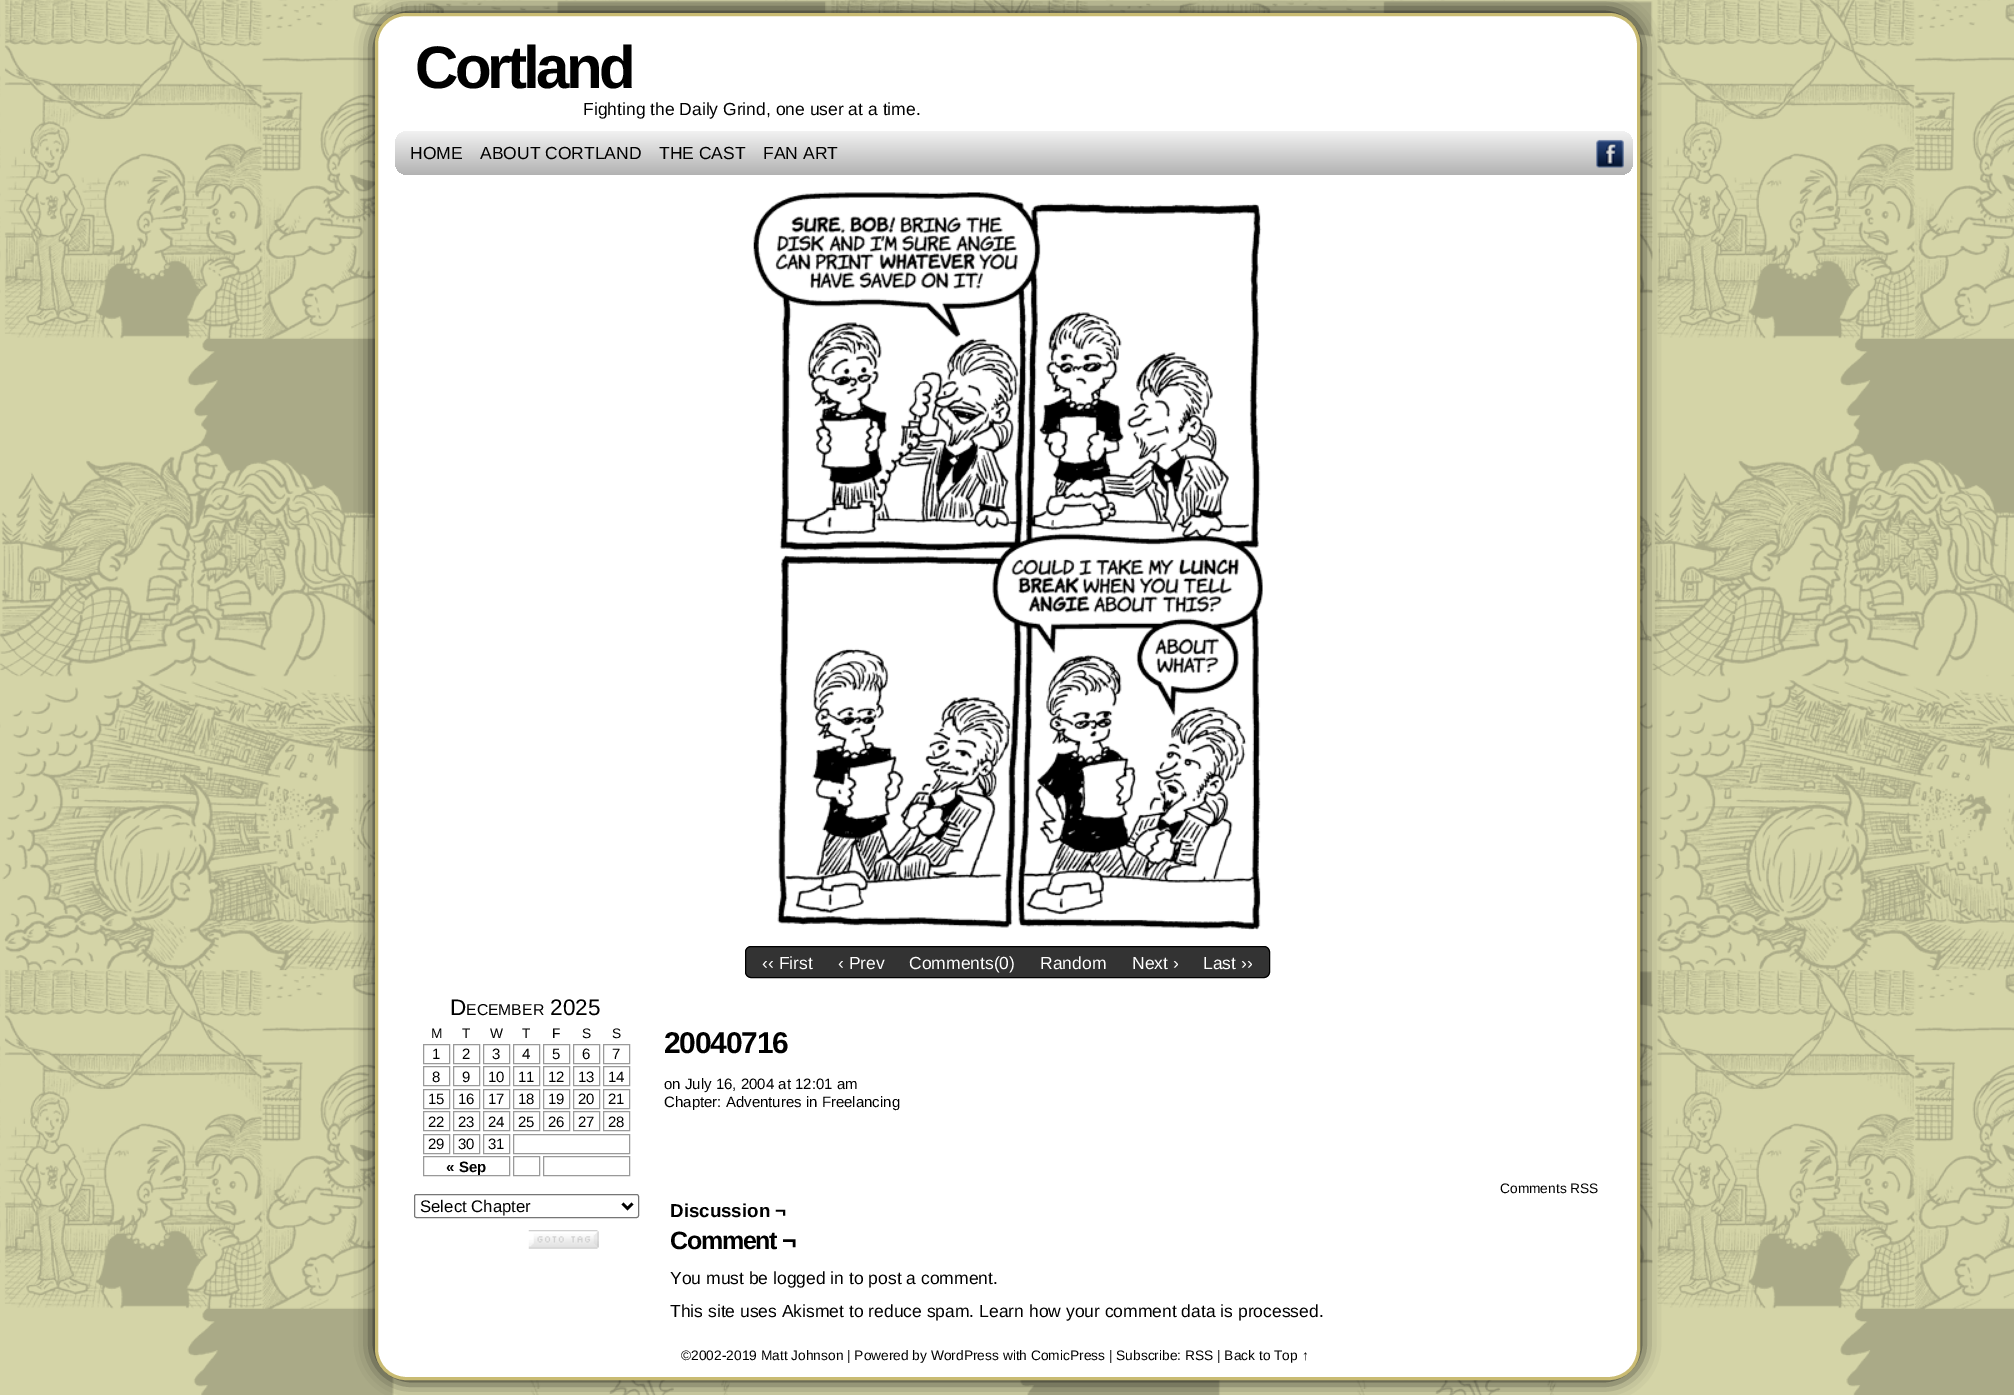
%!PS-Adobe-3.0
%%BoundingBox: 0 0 2014 1395
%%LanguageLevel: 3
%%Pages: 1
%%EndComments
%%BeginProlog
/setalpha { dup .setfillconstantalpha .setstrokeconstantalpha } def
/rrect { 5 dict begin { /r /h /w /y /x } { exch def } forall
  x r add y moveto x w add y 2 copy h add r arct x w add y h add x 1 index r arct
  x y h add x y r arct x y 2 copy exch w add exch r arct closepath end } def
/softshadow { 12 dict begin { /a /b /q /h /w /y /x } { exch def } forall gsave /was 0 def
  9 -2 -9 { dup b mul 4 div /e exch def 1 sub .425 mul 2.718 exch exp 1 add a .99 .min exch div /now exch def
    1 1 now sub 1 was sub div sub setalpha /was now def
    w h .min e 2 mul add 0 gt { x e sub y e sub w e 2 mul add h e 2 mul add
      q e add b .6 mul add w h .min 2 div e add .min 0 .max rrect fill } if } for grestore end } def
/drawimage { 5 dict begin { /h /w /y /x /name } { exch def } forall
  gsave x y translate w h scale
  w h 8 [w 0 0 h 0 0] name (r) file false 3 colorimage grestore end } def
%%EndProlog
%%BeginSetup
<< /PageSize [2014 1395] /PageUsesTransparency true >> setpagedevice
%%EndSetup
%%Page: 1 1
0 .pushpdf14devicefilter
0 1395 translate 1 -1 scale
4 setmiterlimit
1 setgray
0 0 2014 1395 rectfill
(images/1.raw) 0 0 2014 1395 drawimage
0 setgray
375 13 1265 1367 31 9.5 1 softshadow
1 setgray
376.5 14.5 1262 1364 29.5 rrect gsave fill grestore
0.788 0.733 0.447 setrgbcolor
3 setlinewidth
stroke
gsave 395 131 1238 44 13 rrect clip newpath
<< /ShadingType 2 /ColorSpace /DeviceRGB /Coords [1014 131 1014 175] /Extend [true true] /Function << /FunctionType 2 /Domain [0 1] /C0 [0.949 0.949 0.949] /C1 [0.698 0.698 0.698] /N 1 >> >> shfill grestore
(images/2.raw) 1596 139 28 29 drawimage
(images/3.raw) 753 192 510 738 drawimage
0.2 setgray
745.5 946.5 524 31 5.5 rrect gsave fill grestore
0 setgray
1 setlinewidth
stroke
0.6 setgray
423.5 1044.5 26 19 rectstroke
453.5 1044.5 26 19 rectstroke
483.5 1044.5 26 19 rectstroke
513.5 1044.5 26 19 rectstroke
543.5 1044.5 26 19 rectstroke
573.5 1044.5 26 19 rectstroke
603.5 1044.5 26 19 rectstroke
423.5 1066.5 26 19 rectstroke
453.5 1066.5 26 19 rectstroke
483.5 1066.5 26 19 rectstroke
513.5 1066.5 26 19 rectstroke
543.5 1066.5 26 19 rectstroke
573.5 1066.5 26 19 rectstroke
603.5 1066.5 26 19 rectstroke
423.5 1089.5 26 19 rectstroke
453.5 1089.5 26 19 rectstroke
483.5 1089.5 26 19 rectstroke
513.5 1089.5 26 19 rectstroke
543.5 1089.5 26 19 rectstroke
573.5 1089.5 26 19 rectstroke
603.5 1089.5 26 19 rectstroke
423.5 1111.5 26 19 rectstroke
453.5 1111.5 26 19 rectstroke
483.5 1111.5 26 19 rectstroke
513.5 1111.5 26 19 rectstroke
543.5 1111.5 26 19 rectstroke
573.5 1111.5 26 19 rectstroke
603.5 1111.5 26 19 rectstroke
423.5 1134.5 26 19 rectstroke
453.5 1134.5 26 19 rectstroke
483.5 1134.5 26 19 rectstroke
513.5 1134.5 116 19 rectstroke
423.5 1156.5 86 19 rectstroke
513.5 1156.5 26 19 rectstroke
543.5 1156.5 86 19 rectstroke
0.463 setgray
414.5 1194.5 224 23 2 rrect stroke
0 setgray
2.5 setlinewidth
newpath 622.5 1203.5 moveto 627.5 1208.5 lineto 632.5 1203.5 lineto stroke
(images/4.raw) 528 1230 71 19 drawimage
/LiberationSans-Bold [60 0 0 -60 0 0] selectfont
415 88 moveto -3.75 0 (Cortland) ashow
/LiberationSans-Regular [17.5 0 0 -17.5 0 0] selectfont
583 115 moveto (Fighting the Daily Grind, one user at a time.) show
410 159 moveto (HOME) show
480 159 moveto (ABOUT CORTLAND) show
659 159 moveto (THE CAST) show
763 159 moveto (FAN ART) show
1 setgray
762 969 moveto (‹‹ First) show
838 969 moveto (‹ Prev) show
909 969 moveto (Comments\(0\)) show
1040 969 moveto (Random) show
1132 969 moveto (Next ›) show
1203 969 moveto (Last ››) show
/LiberationSans-Regular [22.5 0 0 -22.5 0 0] selectfont
0 setgray
450 1015 moveto (D) show
/LiberationSans-Regular [15.75 0 0 -15.75 0 0] selectfont
466 1015 moveto (ECEMBER) show
/LiberationSans-Regular [22.5 0 0 -22.5 0 0] selectfont
550 1015 moveto (2025) show
/LiberationSans-Regular [13.75 0 0 -13.75 0 0] selectfont
431 1038 moveto (M) show
462 1038 moveto (T) show
490 1038 moveto (W) show
522 1038 moveto (T) show
552 1038 moveto (F) show
582 1038 moveto (S) show
612 1038 moveto (S) show
/LiberationSans-Regular [15 0 0 -15 0 0] selectfont
432 1059 moveto (1) show
462 1059 moveto (2) show
492 1059 moveto (3) show
522 1059 moveto (4) show
552 1059 moveto (5) show
582 1059 moveto (6) show
612 1059 moveto (7) show
432 1082 moveto (8) show
462 1082 moveto (9) show
488 1082 moveto (10) show
518 1082 moveto (11) show
548 1082 moveto (12) show
578 1082 moveto (13) show
608 1082 moveto (14) show
428 1104 moveto (15) show
458 1104 moveto (16) show
488 1104 moveto (17) show
518 1104 moveto (18) show
548 1104 moveto (19) show
578 1104 moveto (20) show
608 1104 moveto (21) show
428 1127 moveto (22) show
458 1127 moveto (23) show
488 1127 moveto (24) show
518 1127 moveto (25) show
548 1127 moveto (26) show
578 1127 moveto (27) show
608 1127 moveto (28) show
428 1149 moveto (29) show
458 1149 moveto (30) show
488 1149 moveto (31) show
/LiberationSans-Bold [15 0 0 -15 0 0] selectfont
446 1172 moveto (« Sep) show
/LiberationSans-Regular [16.75 0 0 -16.75 0 0] selectfont
420 1212 moveto (Select Chapter) show
/LiberationSans-Bold [30 0 0 -30 0 0] selectfont
664 1053 moveto -1.25 0 (20040716) ashow
/LiberationSans-Regular [15 0 0 -15 0 0] selectfont
664 1089 moveto (on July 16, 2004 at 12:01 am) show
664 1107 moveto (Chapter: Adventures in Freelancing) show
/LiberationSans-Regular [13.75 0 0 -13.75 0 0] selectfont
1500 1193 moveto (Comments RSS) show
/LiberationSans-Bold [18.75 0 0 -18.75 0 0] selectfont
670 1217 moveto (Discussion ¬) show
/LiberationSans-Bold [25 0 0 -25 0 0] selectfont
670 1249 moveto -1.25 0 (Comment ¬) ashow
/LiberationSans-Regular [17.5 0 0 -17.5 0 0] selectfont
670 1284 moveto (You must be logged in to post a comment.) show
670 1317 moveto (This site uses Akismet to reduce spam. Learn how your comment data is processed.) show
/LiberationSans-Regular [13.75 0 0 -13.75 0 0] selectfont
681 1360 moveto (©2002-2019 Matt Johnson | Powered by WordPress with ComicPress | Subscribe: RSS | Back to Top ↑) show
.poppdf14devicefilter showpage
%%EOF
